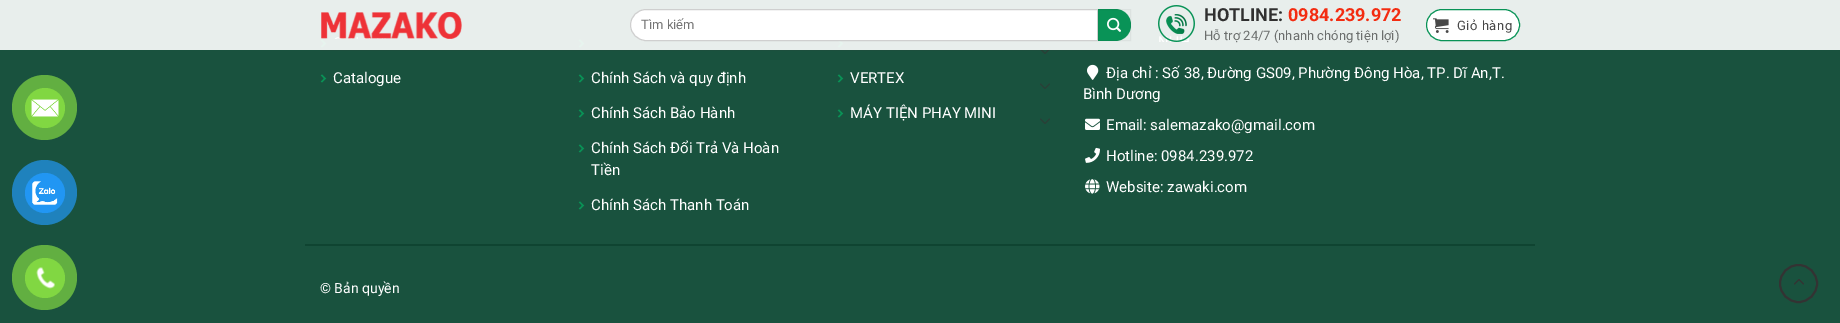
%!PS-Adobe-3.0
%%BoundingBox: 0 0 1840 323
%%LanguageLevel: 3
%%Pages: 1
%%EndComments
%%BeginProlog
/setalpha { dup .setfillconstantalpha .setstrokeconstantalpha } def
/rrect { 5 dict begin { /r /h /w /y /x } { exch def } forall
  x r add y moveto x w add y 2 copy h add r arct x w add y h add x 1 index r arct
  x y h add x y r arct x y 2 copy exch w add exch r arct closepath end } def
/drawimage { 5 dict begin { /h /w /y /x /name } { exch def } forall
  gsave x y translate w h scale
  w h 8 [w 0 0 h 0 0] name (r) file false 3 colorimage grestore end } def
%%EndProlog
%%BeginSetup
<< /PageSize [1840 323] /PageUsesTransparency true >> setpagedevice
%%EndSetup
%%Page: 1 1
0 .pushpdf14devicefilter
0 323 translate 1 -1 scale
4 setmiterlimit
0.098 0.322 0.243 setrgbcolor
0 0 1840 323 rectfill
0.384 0.686 0.255 setrgbcolor
newpath 44.5 107.5 32.5 0 360 arc closepath fill
0.506 0.843 0.259 setrgbcolor
newpath 45 108 20 0 360 arc closepath fill
(images/1.raw) 31 99 28 18 drawimage
0.122 0.51 0.741 setrgbcolor
newpath 44.5 192.5 32.5 0 360 arc closepath fill
0.129 0.588 0.953 setrgbcolor
newpath 45 193 20 0 360 arc closepath fill
(images/2.raw) 32 181 26 24 drawimage
0.384 0.686 0.255 setrgbcolor
newpath 44.5 277.5 32.5 0 360 arc closepath fill
0.506 0.843 0.259 setrgbcolor
newpath 45 278 20 0 360 arc closepath fill
(images/3.raw) 36 267 19 22 drawimage
(images/8.raw) 320 39 7 9 drawimage
(images/8.raw) 578 39 7 9 drawimage
(images/9.raw) 837 41 7 7 drawimage
(images/10.raw) 1040 48 10 6 drawimage
0.9 setalpha
1 setgray
0 0 1840 50 rectfill
1 setalpha
(images/4.raw) 321 12 141 27 drawimage
newpath 646 9.5 moveto 1097.5 9.5 lineto 1097.5 40.5 lineto 646 40.5 lineto 637.5 40.5 630.5 33.5 630.5 25 curveto 630.5 16.5 637.5 9.5 646 9.5 curveto closepath gsave fill grestore
0.812 setgray
stroke
0.035 0.576 0.341 setrgbcolor
newpath 1098 9 moveto 1115 9 lineto 1124 9 1131 16 1131 25 curveto 1131 34 1124 41 1115 41 curveto 1098 41 lineto closepath fill
0.05 setalpha
0 setgray
1098.5 9.5 32 31 rectstroke
1 setalpha
(images/5.raw) 1107 17 14 15 drawimage
(images/6.raw) 1158 5 37 37 drawimage
1 setgray
1426.5 9.5 93 31 15.5 rrect gsave fill grestore
0.035 0.576 0.341 setrgbcolor
stroke
(images/7.raw) 1433 18 16 15 drawimage
0.1 setalpha
0.2 setgray
320 50 1200 1 rectfill
1 setalpha
(images/8.raw) 320 74 7 9 drawimage
(images/8.raw) 578 74 7 9 drawimage
(images/8.raw) 578 109 7 9 drawimage
(images/8.raw) 578 144 7 9 drawimage
(images/8.raw) 578 201 7 9 drawimage
(images/8.raw) 837 74 7 9 drawimage
(images/10.raw) 1040 83 10 6 drawimage
(images/8.raw) 837 109 7 9 drawimage
(images/10.raw) 1040 118 10 6 drawimage
(images/11.raw) 1087 64 12 16 drawimage
(images/12.raw) 1085 118 15 12 drawimage
(images/13.raw) 1085 147 15 16 drawimage
(images/14.raw) 1085 179 15 15 drawimage
0.059 0.267 0.192 setrgbcolor
305 244 1230 2 rectfill
0.2 setgray
2 setlinewidth
newpath 1798.5 283.5 18.5 0 360 arc closepath stroke
(images/15.raw) 1794 279 10 6 drawimage
/Roboto-Regular [13 0 0 -13 0 0] selectfont
0.459 setgray
641 29 moveto (Tìm kiếm) show
/Roboto-Bold [18 0 0 -18 0 0] selectfont
0.188 setgray
1204 21 moveto (HOTLINE:) show
0.953 0.173 0.067 setrgbcolor
1288 21 moveto (0984.239.972) show
/Roboto-Regular [13 0 0 -13 0 0] selectfont
0.42 0.431 0.427 setrgbcolor
1204 40 moveto (Hỗ trợ 24/7 \(nhanh chóng tiện lợi\)) show
0.282 setgray
1457 30 moveto 0.5 0 (Giỏ hàng) ashow
/Roboto-Regular [15 0 0 -15 0 0] selectfont
1 setgray
333 83 moveto (Catalogue) show
591 83 moveto (Chính Sách và quy định) show
591 118 moveto (Chính Sách Bảo Hành) show
591 153 moveto (Chính Sách Đổi Trả Và Hoàn) show
591 175 moveto (Tiền) show
591 210 moveto (Chính Sách Thanh Toán) show
850 83 moveto (VERTEX) show
850 118 moveto (MÁY TIỆN PHAY MINI) show
1106 78 moveto (Địa chỉ : Số 38, Đường GS09, Phường Đông Hòa, TP. Dĩ An,T.) show
1083 99 moveto (Bình Dương) show
1106 130 moveto (Email: salemazako@gmail.com) show
1106 161 moveto (Hotline: 0984.239.972) show
1106 192 moveto (Website: zawaki.com) show
/Roboto-Regular [14 0 0 -14 0 0] selectfont
320 293 moveto (© Bản quyền) show
.poppdf14devicefilter showpage
%%EOF
